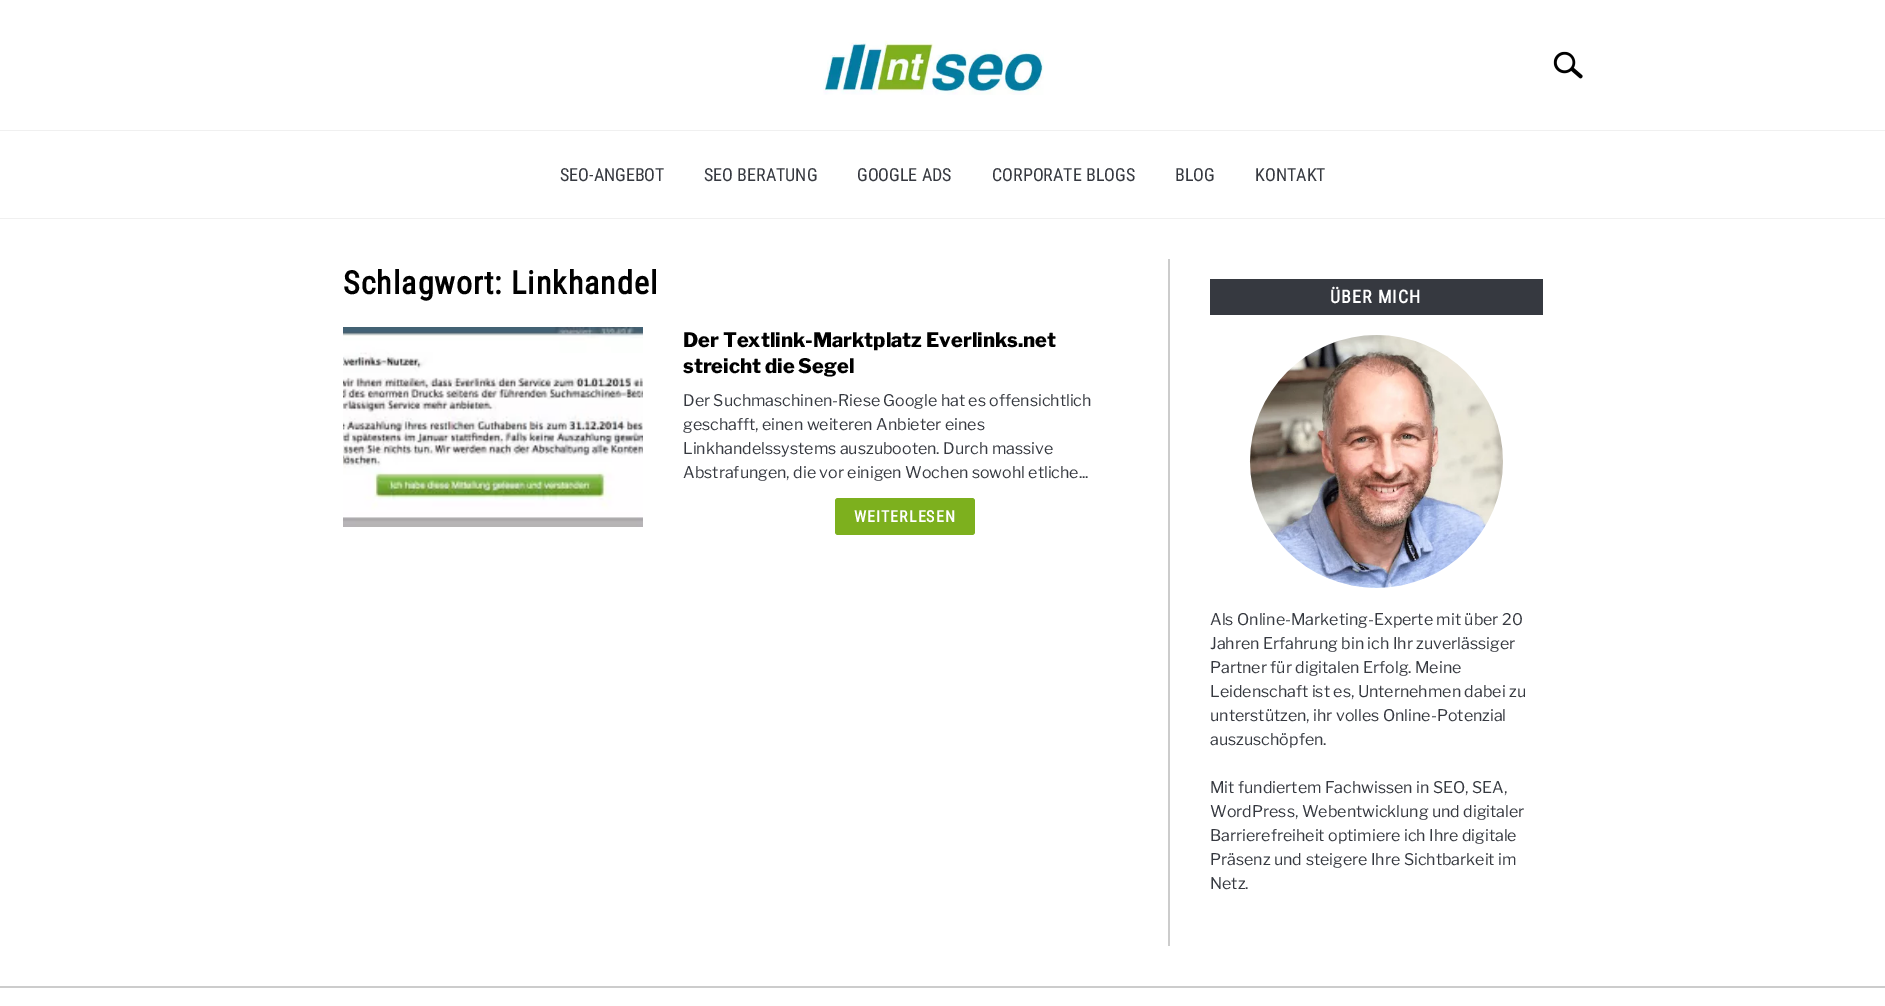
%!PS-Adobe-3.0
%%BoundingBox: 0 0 1885 1006
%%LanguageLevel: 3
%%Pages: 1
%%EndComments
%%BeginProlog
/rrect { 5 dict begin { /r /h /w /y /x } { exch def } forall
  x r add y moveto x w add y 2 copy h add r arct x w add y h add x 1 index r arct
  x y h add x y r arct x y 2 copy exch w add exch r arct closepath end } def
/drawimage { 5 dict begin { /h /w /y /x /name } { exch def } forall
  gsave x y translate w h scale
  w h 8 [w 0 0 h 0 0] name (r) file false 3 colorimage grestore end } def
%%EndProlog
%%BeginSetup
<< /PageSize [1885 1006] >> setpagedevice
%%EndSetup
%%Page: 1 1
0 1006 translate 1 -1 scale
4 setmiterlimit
1 setgray
0 0 1885 1006 rectfill
(images/1.raw) 823 40 221 55 drawimage
(images/2.raw) 1553 51 30 28 drawimage
0.941 setgray
0 130 1885 1 rectfill
0 218 1885 1 rectfill
(images/3.raw) 343 327 300 200 drawimage
0.49 0.69 0.118 setrgbcolor
835 498 140 37 3 rrect fill
0.8 setgray
1168 259 2 687 rectfill
0.212 0.224 0.251 setrgbcolor
1210 279 333 36 rectfill
(images/4.raw) 1249 335 254 253 drawimage
0.8 setgray
0 986 1885 2 rectfill
/RobotoCondensed-Regular [18 0 0 -18 0 0] selectfont
0.212 0.224 0.251 setrgbcolor
560 181 moveto (SEO-ANGEBOT) show
704 181 moveto (SEO BERATUNG) show
857 181 moveto (GOOGLE ADS) show
992 181 moveto (CORPORATE BLOGS) show
1175 181 moveto (BLOG) show
1255 181 moveto (KONTAKT) show
/RobotoCondensed-Bold [32 0 0 -32 0 0] selectfont
0 setgray
343 294 moveto 1 0 (Schlagwort: Linkhandel) ashow
/LibreFranklin-ExtraBold [20 0 0 -20 0 0] selectfont
683 347 moveto (Der Textlink-Marktplatz Everlinks.net) show
683 373 moveto (streicht die Segel) show
/LibreFranklin-Regular [16 0 0 -16 0 0] selectfont
0.212 0.224 0.251 setrgbcolor
683 406 moveto (Der Suchmaschinen-Riese Google hat es offensichtlich) show
683 430 moveto (geschafft, einen weiteren Anbieter eines) show
683 454 moveto (Linkhandelssystems auszubooten. Durch massive) show
683 478 moveto (Abstrafungen, die vor einigen Wochen sowohl etliche...) show
/RobotoCondensed-Bold [16 0 0 -16 0 0] selectfont
1 setgray
854 522 moveto 1 0 (WEITERLESEN) ashow
/RobotoCondensed-Bold [18 0 0 -18 0 0] selectfont
1330 303 moveto 1 0 (ÜBER MICH) ashow
/LibreFranklin-Regular [16 0 0 -16 0 0] selectfont
0.212 0.224 0.251 setrgbcolor
1210 625 moveto (Als Online-Marketing-Experte mit über 20) show
1210 649 moveto (Jahren Erfahrung bin ich Ihr zuverlässiger) show
1210 673 moveto (Partner für digitalen Erfolg. Meine) show
1210 697 moveto (Leidenschaft ist es, Unternehmen dabei zu) show
1210 721 moveto (unterstützen, ihr volles Online-Potenzial) show
1210 745 moveto (auszuschöpfen.) show
1210 793 moveto (Mit fundiertem Fachwissen in SEO, SEA,) show
1210 817 moveto (WordPress, Webentwicklung und digitaler) show
1210 841 moveto (Barrierefreiheit optimiere ich Ihre digitale) show
1210 865 moveto (Präsenz und steigere Ihre Sichtbarkeit im) show
1210 889 moveto (Netz.) show
showpage
%%EOF
